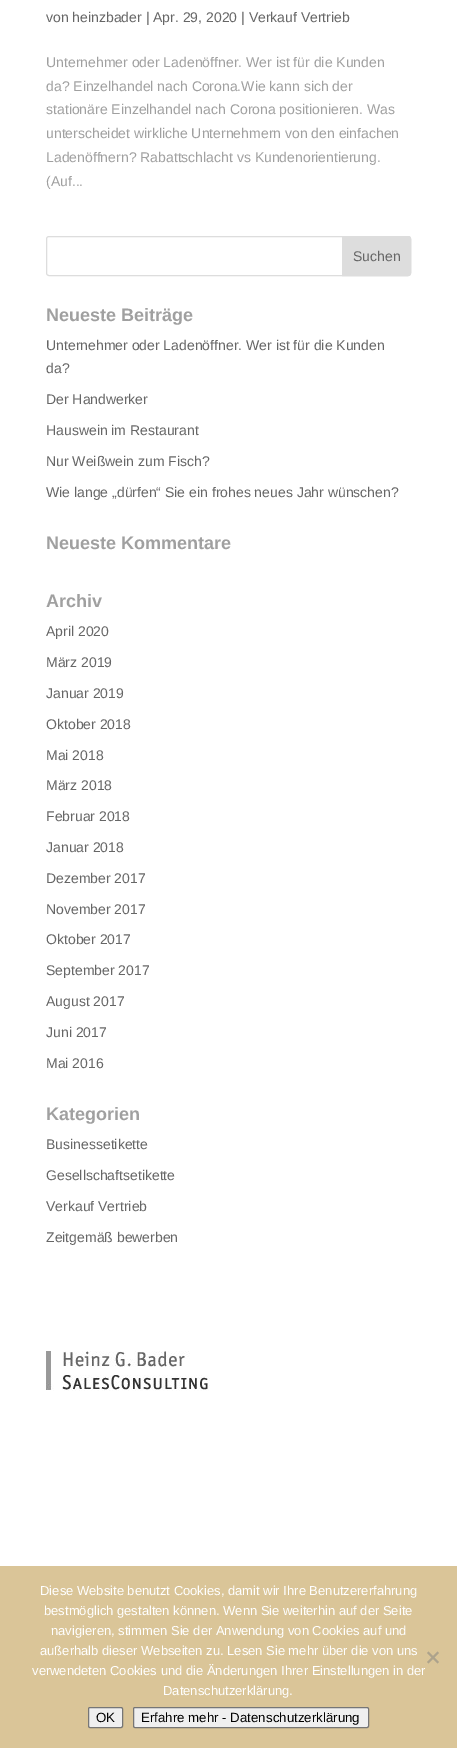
%!PS-Adobe-3.0
%%BoundingBox: 0 0 457 1748
%%LanguageLevel: 3
%%Pages: 1
%%EndComments
%%BeginProlog
/rrect { 5 dict begin { /r /h /w /y /x } { exch def } forall
  x r add y moveto x w add y 2 copy h add r arct x w add y h add x 1 index r arct
  x y h add x y r arct x y 2 copy exch w add exch r arct closepath end } def
/drawimage { 5 dict begin { /h /w /y /x /name } { exch def } forall
  gsave x y translate w h scale
  w h 8 [w 0 0 h 0 0] name (r) file false 3 colorimage grestore end } def
%%EndProlog
%%BeginSetup
<< /PageSize [457 1748] >> setpagedevice
%%EndSetup
%%Page: 1 1
0 1748 translate 1 -1 scale
4 setmiterlimit
1 setgray
0 0 457 1748 rectfill
0.867 setgray
46.5 236.5 364 39 2.5 rrect stroke
newpath 342.5 236.5 moveto 408 236.5 lineto 409.5 236.5 410.5 237.5 410.5 239 curveto 410.5 273 lineto 410.5 274.5 409.5 275.5 408 275.5 curveto 342.5 275.5 lineto closepath gsave fill grestore
stroke
(images/1.raw) 46 1351 164 40 drawimage
0.855 0.773 0.596 setrgbcolor
0 1566 457 182 rectfill
0.678 0.639 0.549 setrgbcolor
newpath 437.5 1651.5 moveto 439 1653 lineto 428.5 1663.5 lineto 427 1662 lineto closepath fill
newpath 427 1653 moveto 428.5 1651.5 lineto 439 1662 lineto 437.5 1663.5 lineto closepath fill
0.937 setgray
88.5 1707.5 34 20 1.5 rrect gsave fill grestore
0.463 setgray
stroke
0.937 setgray
133.5 1707.5 235 20 1.5 rrect gsave fill grestore
0.463 setgray
stroke
/LiberationSans-Regular [14 0 0 -14 0 0] selectfont
0.4 setgray
46 22 moveto (von heinzbader | Apr. 29, 2020 | Verkauf Vertrieb) show
0.627 setgray
46 67 moveto (Unternehmer oder Ladenöffner. Wer ist für die Kunden) show
46 91 moveto (da? Einzelhandel nach Corona.Wie kann sich der) show
46 114 moveto (stationäre Einzelhandel nach Corona positionieren. Was) show
46 138 moveto (unterscheidet wirkliche Unternehmern von den einfachen) show
46 162 moveto (Ladenöffnern? Rabattschlacht vs Kundenorientierung.) show
46 186 moveto (\(Auf...) show
0.4 setgray
353 261 moveto (Suchen) show
/LiberationSans-Bold [18 0 0 -18 0 0] selectfont
0.627 setgray
46 321 moveto (Neueste Beiträge) show
/LiberationSans-Regular [14 0 0 -14 0 0] selectfont
0.4 setgray
46 350 moveto (Unternehmer oder Ladenöffner. Wer ist für die Kunden) show
46 373 moveto (da?) show
46 404 moveto (Der Handwerker) show
46 435 moveto (Hauswein im Restaurant) show
46 466 moveto (Nur Weißwein zum Fisch?) show
46 497 moveto (Wie lange „dürfen“ Sie ein frohes neues Jahr wünschen?) show
/LiberationSans-Bold [18 0 0 -18 0 0] selectfont
0.627 setgray
46 549 moveto (Neueste Kommentare) show
46 607 moveto (Archiv) show
/LiberationSans-Regular [14 0 0 -14 0 0] selectfont
0.4 setgray
46 636 moveto (April 2020) show
46 667 moveto (März 2019) show
46 698 moveto (Januar 2019) show
46 729 moveto (Oktober 2018) show
46 760 moveto (Mai 2018) show
46 790 moveto (März 2018) show
46 821 moveto (Februar 2018) show
46 852 moveto (Januar 2018) show
46 883 moveto (Dezember 2017) show
46 914 moveto (November 2017) show
46 944 moveto (Oktober 2017) show
46 975 moveto (September 2017) show
46 1006 moveto (August 2017) show
46 1037 moveto (Juni 2017) show
46 1068 moveto (Mai 2016) show
/LiberationSans-Bold [18 0 0 -18 0 0] selectfont
0.627 setgray
46 1120 moveto (Kategorien) show
/LiberationSans-Regular [14 0 0 -14 0 0] selectfont
0.4 setgray
46 1149 moveto (Businessetikette) show
46 1180 moveto (Gesellschaftsetikette) show
46 1211 moveto (Verkauf Vertrieb) show
46 1242 moveto (Zeitgemäß bewerben) show
/LiberationSans-Regular [13 0 0 -13 0 0] selectfont
1 setgray
40 1595 moveto (Diese Website benutzt Cookies, damit wir Ihre Benutzererfahrung) show
44 1615 moveto (bestmöglich gestalten können. Wenn Sie weiterhin auf der Seite) show
51 1635 moveto (navigieren, stimmen Sie der Anwendung von Cookies auf und) show
40 1655 moveto (außerhalb dieser Webseiten zu. Lesen Sie mehr über die von uns) show
32 1675 moveto (verwendeten Cookies und die Änderungen Ihrer Einstellungen in der) show
163 1695 moveto (Datenschutzerklärung.) show
/LiberationSans-Regular [13.3 0 0 -13.3 0 0] selectfont
0 setgray
96 1722 moveto (OK) show
141 1722 moveto (Erfahre mehr - Datenschutzerklärung) show
showpage
%%EOF
